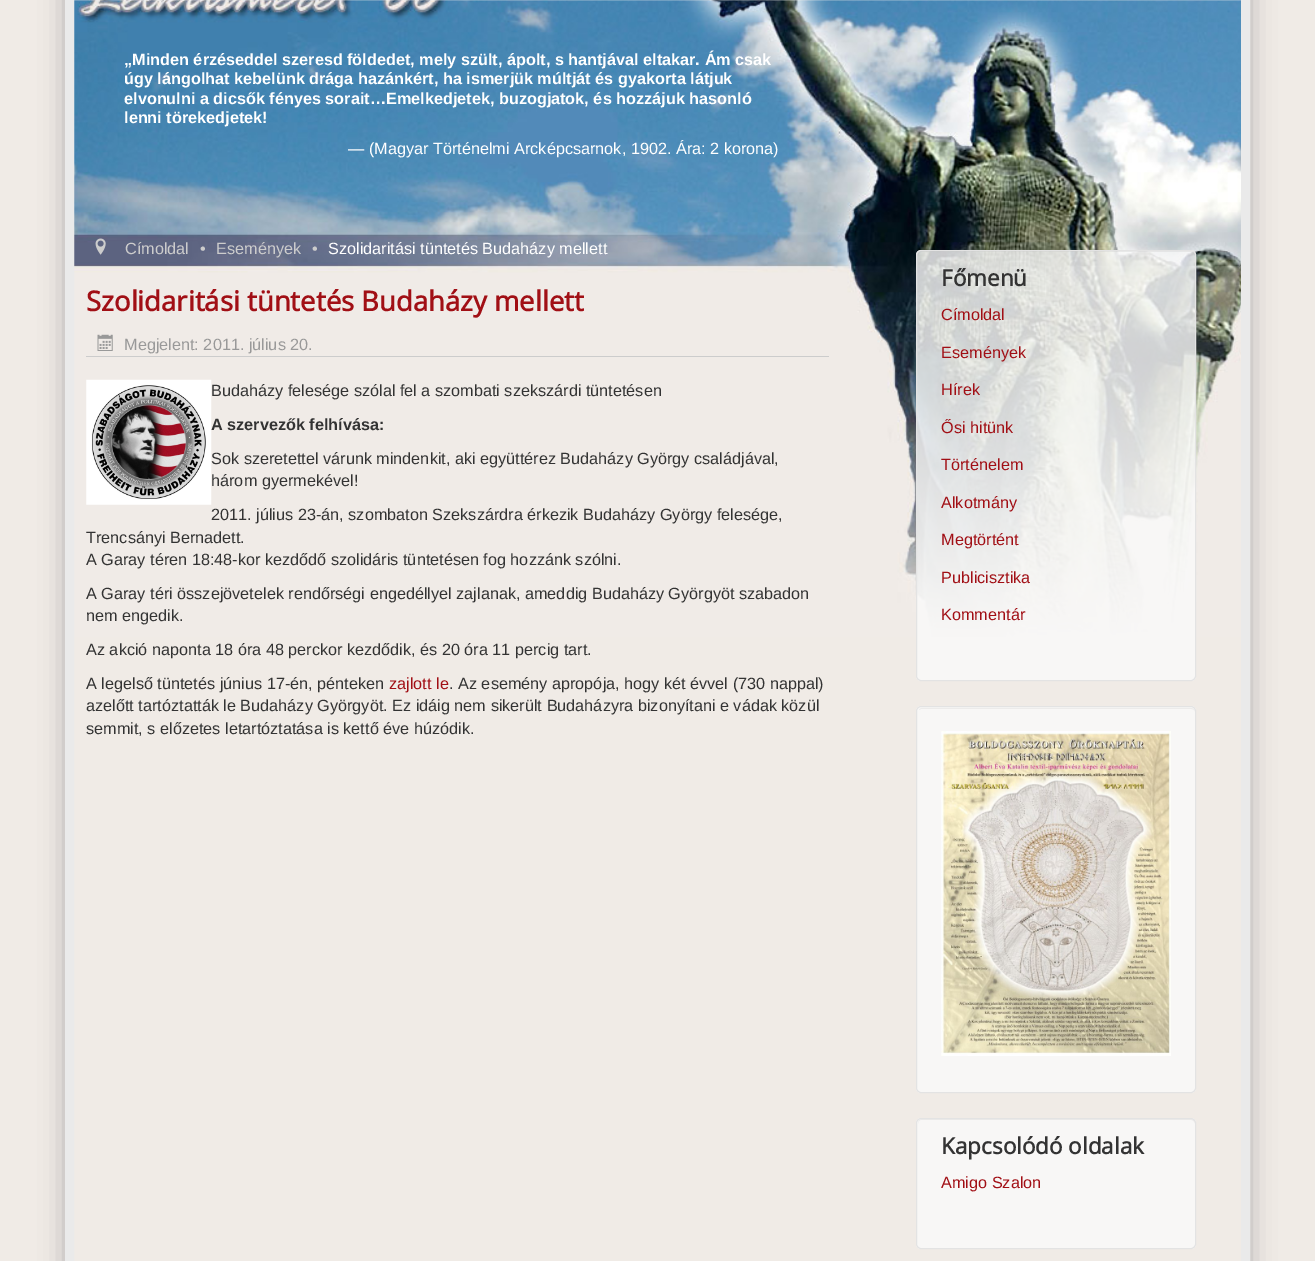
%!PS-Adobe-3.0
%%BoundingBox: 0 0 1315 1261
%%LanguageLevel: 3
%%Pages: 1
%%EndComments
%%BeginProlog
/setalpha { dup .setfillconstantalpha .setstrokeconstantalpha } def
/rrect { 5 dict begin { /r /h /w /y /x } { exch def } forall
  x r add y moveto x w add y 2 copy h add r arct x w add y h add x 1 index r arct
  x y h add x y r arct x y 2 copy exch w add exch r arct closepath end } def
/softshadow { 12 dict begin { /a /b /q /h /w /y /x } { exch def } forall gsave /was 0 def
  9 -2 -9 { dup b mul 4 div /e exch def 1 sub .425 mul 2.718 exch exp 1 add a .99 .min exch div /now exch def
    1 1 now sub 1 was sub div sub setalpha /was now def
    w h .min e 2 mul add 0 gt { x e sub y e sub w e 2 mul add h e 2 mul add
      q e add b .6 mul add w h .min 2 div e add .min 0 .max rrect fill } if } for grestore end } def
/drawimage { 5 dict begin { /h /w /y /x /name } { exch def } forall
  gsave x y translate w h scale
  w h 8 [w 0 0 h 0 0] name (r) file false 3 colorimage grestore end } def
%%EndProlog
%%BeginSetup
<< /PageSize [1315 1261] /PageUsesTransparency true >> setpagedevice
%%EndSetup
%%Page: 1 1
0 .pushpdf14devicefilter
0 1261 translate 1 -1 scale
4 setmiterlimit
0.941 0.922 0.902 setrgbcolor
0 0 1315 1261 rectfill
gsave
newpath 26 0 moveto 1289 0 lineto 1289 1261 lineto 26 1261 lineto closepath 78 -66 moveto 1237 -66 lineto 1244 -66 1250 -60 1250 -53 curveto 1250 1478 lineto 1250 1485 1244 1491 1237 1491 curveto 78 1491 lineto 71 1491 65 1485 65 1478 curveto 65 -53 lineto 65 -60 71 -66 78 -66 curveto closepath eoclip newpath
0.686 setgray
65 -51 1185 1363 13 12.5 1 softshadow
grestore
(images/1.raw) 74 0 1167 637 drawimage
0.918 setgray
9 setlinewidth
69.5 -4.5 1176 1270 rectstroke
(images/2.raw) 95 238 11 17 drawimage
0.8 setgray
86 356 743 1 rectfill
(images/3.raw) 97 334 16 17 drawimage
(images/4.raw) 86 379 126 126 drawimage
0.8 setalpha
0.98 setgray
916 250 280 431 5 rrect fill
0.05 setalpha
0 setgray
newpath 921 252 moveto 1191 252 lineto 1193 252 1195 254 1195 256 curveto 1195 253 1194 251 1191 251 curveto 922 251 lineto 919 251 918 253 918 256 curveto 918 254 919 252 921 252 curveto closepath fill
1 setalpha
0.89 setgray
1 setlinewidth
916.5 250.5 279 430 4.5 rrect stroke
0.973 0.969 0.965 setrgbcolor
916 706 280 387 5 rrect fill
0.925 0.922 0.918 setrgbcolor
newpath 921 709 moveto 1191 709 lineto 1193 709 1195 710 1195 712 curveto 1195 710 1193 708 1191 708 curveto 922 708 lineto 921 708 919 709 919 710 curveto closepath fill
0.89 setgray
916.5 706.5 279 386 4.5 rrect stroke
(images/5.raw) 941 731 230 325 drawimage
0.973 0.969 0.965 setrgbcolor
916 1118 280 131 5 rrect fill
0.925 0.922 0.918 setrgbcolor
newpath 921 1120 moveto 1191 1120 lineto 1193 1120 1195 1122 1195 1124 curveto 1195 1121 1194 1119 1191 1119 curveto 922 1119 lineto 919 1119 918 1121 918 1124 curveto 918 1122 919 1120 921 1120 curveto closepath fill
0.89 setgray
916.5 1118.5 279 130 4.5 rrect stroke
/LiberationSans-Bold [16.25 0 0 -16.25 0 0] selectfont
1 setgray
124 65 moveto („Minden érzéseddel szeresd földedet, mely szült, ápolt, s hantjával eltakar. Ám csak) show
124 84 moveto (úgy lángolhat kebelünk drága hazánkért, ha ismerjük múltját és gyakorta látjuk) show
124 104 moveto (elvonulni a dicsők fényes sorait…Emelkedjetek, buzogjatok, és hozzájuk hasonló) show
124 123 moveto (lenni törekedjetek!) show
/LiberationSans-Regular [16.25 0 0 -16.25 0 0] selectfont
348 154 moveto (— \(Magyar Történelmi Arcképcsarnok, 1902. Ára: 2 korona\)) show
0.8 setgray
125 254 moveto (Címoldal) show
200 254 moveto (•) show
216 254 moveto (Események) show
312 254 moveto (•) show
1 setgray
328 254 moveto (Szolidaritási tüntetés Budaházy mellett) show
/OpenSans-Bold [27.5 0 0 -27.5 0 0] selectfont
0.631 0.059 0.082 setrgbcolor
86 311 moveto (Szolidaritási tüntetés Budaházy mellett) show
/LiberationSans-Regular [16.25 0 0 -16.25 0 0] selectfont
0.6 setgray
124 350 moveto (Megjelent: 2011. július 20.) show
0.2 setgray
211 396 moveto (Budaházy felesége szólal fel a szombati szekszárdi tüntetésen) show
/LiberationSans-Bold [16.25 0 0 -16.25 0 0] selectfont
211 430 moveto (A szervezők felhívása:) show
/LiberationSans-Regular [16.25 0 0 -16.25 0 0] selectfont
211 464 moveto (Sok szeretettel várunk mindenkit, aki együttérez Budaházy György családjával,) show
211 486 moveto (három gyermekével!) show
211 520 moveto (2011. július 23-án, szombaton Szekszárdra érkezik Budaházy György felesége,) show
86 543 moveto (Trencsányi Bernadett.) show
86 565 moveto (A Garay téren 18:48-kor kezdődő szolidáris tüntetésen fog hozzánk szólni.) show
86 599 moveto (A Garay téri összejövetelek rendőrségi engedéllyel zajlanak, ameddig Budaházy Györgyöt szabadon) show
86 621 moveto (nem engedik.) show
86 655 moveto (Az akció naponta 18 óra 48 perckor kezdődik, és 20 óra 11 percig tart.) show
86 689 moveto (A legelső tüntetés június 17-én, pénteken) show
0.631 0.059 0.082 setrgbcolor
389 689 moveto (zajlott le) show
0.2 setgray
449 689 moveto (. Az esemény apropója, hogy két évvel \(730 nappal\)) show
86 711 moveto (azelőtt tartóztatták le Budaházy Györgyöt. Ez idáig nem sikerült Budaházyra bizonyítani e vádak közül) show
86 734 moveto (semmit, s előzetes letartóztatása is kettő éve húzódik.) show
/OpenSans-Bold [22.5 0 0 -22.5 0 0] selectfont
941 286 moveto (Főmenü) show
/LiberationSans-Regular [16.25 0 0 -16.25 0 0] selectfont
0.631 0.059 0.082 setrgbcolor
941 320 moveto (Címoldal) show
941 358 moveto (Események) show
941 395 moveto (Hírek) show
941 433 moveto (Ősi hitünk) show
941 470 moveto (Történelem) show
941 508 moveto (Alkotmány) show
941 545 moveto (Megtörtént) show
941 583 moveto (Publicisztika) show
941 620 moveto (Kommentár) show
/OpenSans-Bold [22.5 0 0 -22.5 0 0] selectfont
0.2 setgray
941 1154 moveto (Kapcsolódó oldalak) show
/LiberationSans-Regular [16.25 0 0 -16.25 0 0] selectfont
0.631 0.059 0.082 setrgbcolor
941 1188 moveto (Amigo Szalon) show
.poppdf14devicefilter showpage
%%EOF
